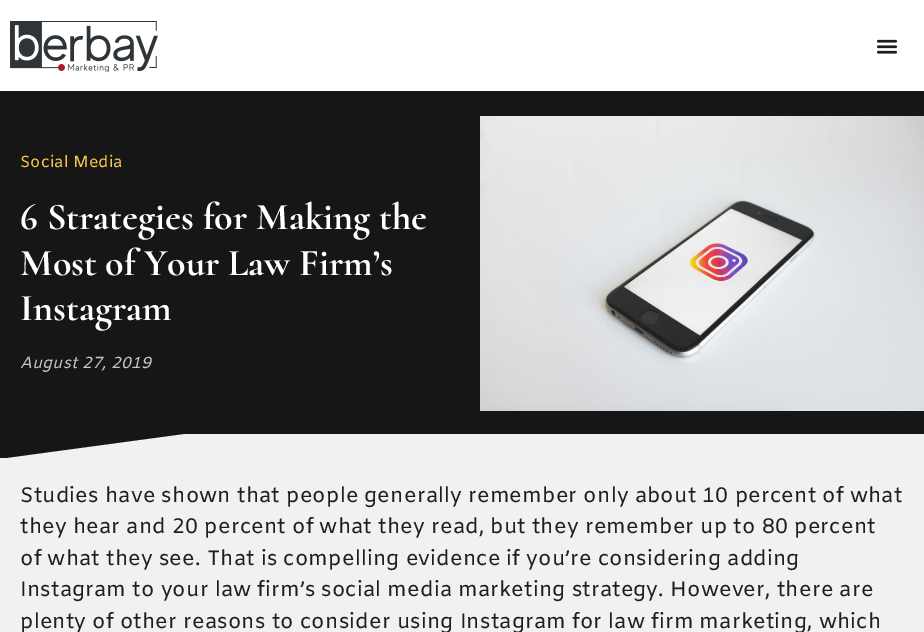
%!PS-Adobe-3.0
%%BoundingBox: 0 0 924 632
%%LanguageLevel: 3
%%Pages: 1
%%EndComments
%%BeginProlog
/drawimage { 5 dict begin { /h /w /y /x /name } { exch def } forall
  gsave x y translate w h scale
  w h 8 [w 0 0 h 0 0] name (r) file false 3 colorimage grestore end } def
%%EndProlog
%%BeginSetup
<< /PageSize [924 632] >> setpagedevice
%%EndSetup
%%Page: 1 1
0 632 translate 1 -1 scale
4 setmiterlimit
1 setgray
0 0 924 632 rectfill
(images/1.raw) 10 21 148 51 drawimage
(images/2.raw) 876 39 22 15 drawimage
0.086 setgray
0 91 924 343 rectfill
(images/3.raw) 480 116 444 295 drawimage
0.945 setgray
0 434 924 198 rectfill
gsave
0 434 198 24 rectclip
0.086 setgray
newpath -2 459 moveto 198 432 lineto -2 432 lineto closepath fill
grestore
/Amiko-Regular [16 0 0 -16 0 0] selectfont
0.98 0.788 0.298 setrgbcolor
20 167 moveto 0.15 0 (Social Media) ashow
/Cormorant-Bold [38 0 0 -38 0 0] selectfont
1 setgray
20 229 moveto (6 Strategies for Making the) show
20 275 moveto -0.5 0 32 (Most of Your Law Firm’s) widthshow
20 320 moveto (Instagram) show
/Amiko-Italic [16 0 0 -16 0 0] selectfont
0.78 setgray
20 368 moveto 0.15 0 (August 27, 2019) ashow
/Amiko-Regular [21 0 0 -21 0 0] selectfont
0.118 setgray
20 502 moveto 0.15 0 (Studies have shown that people generally remember only about 10 percent of what) ashow
20 533 moveto 0.15 0 (they hear and 20 percent of what they read, but they remember up to 80 percent) ashow
20 565 moveto 0.15 0 (of what they see. That is compelling evidence if you’re considering adding) ashow
20 596 moveto 0.15 0 (Instagram to your law firm’s social media marketing strategy. However, there are) ashow
20 628 moveto 0.15 0 (plenty of other reasons to consider using Instagram for law firm marketing, which) ashow
showpage
%%EOF
